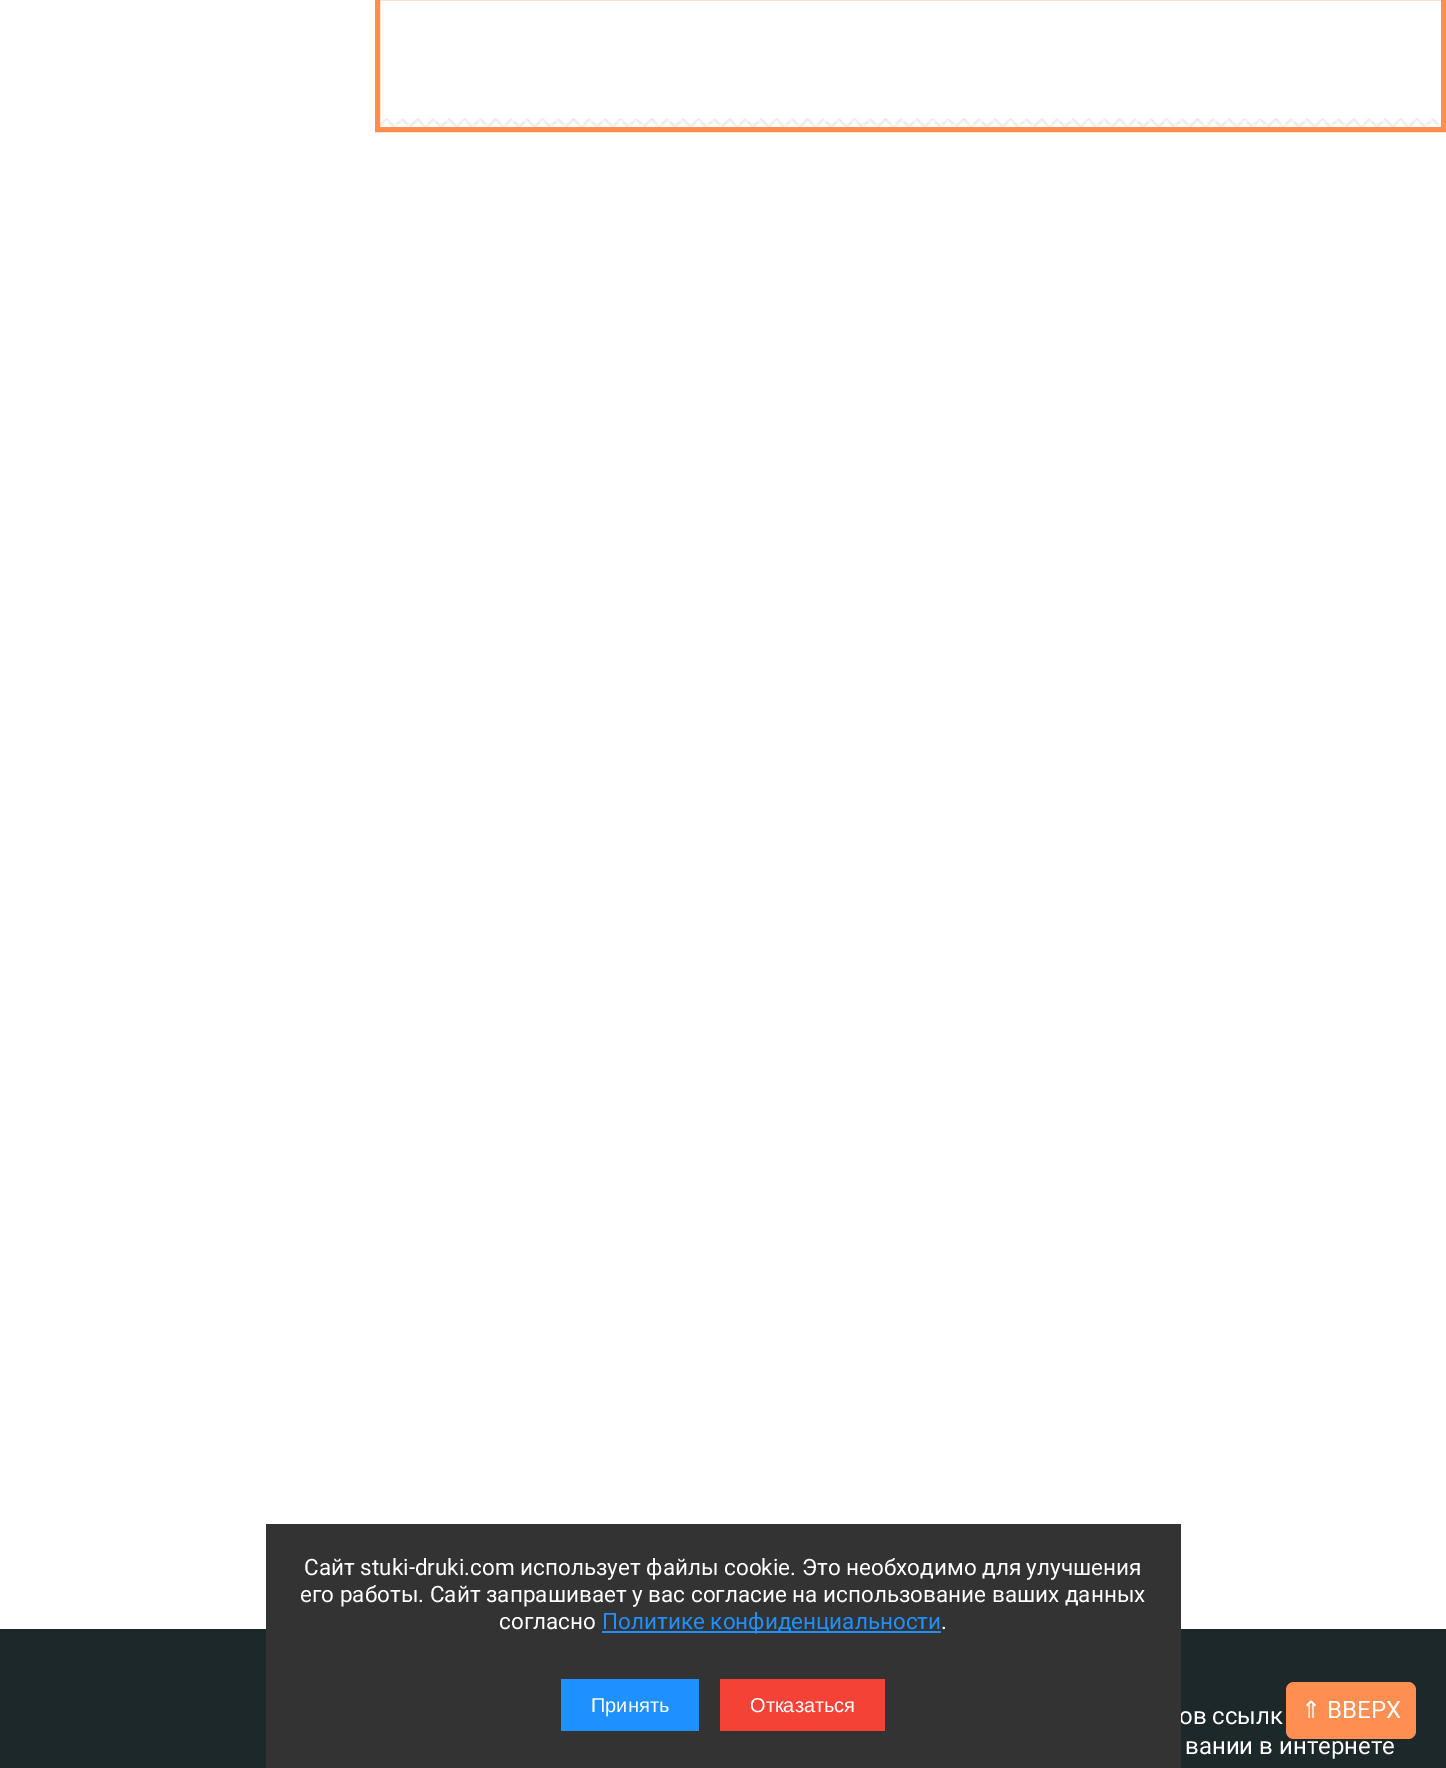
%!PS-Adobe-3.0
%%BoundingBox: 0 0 1446 1768
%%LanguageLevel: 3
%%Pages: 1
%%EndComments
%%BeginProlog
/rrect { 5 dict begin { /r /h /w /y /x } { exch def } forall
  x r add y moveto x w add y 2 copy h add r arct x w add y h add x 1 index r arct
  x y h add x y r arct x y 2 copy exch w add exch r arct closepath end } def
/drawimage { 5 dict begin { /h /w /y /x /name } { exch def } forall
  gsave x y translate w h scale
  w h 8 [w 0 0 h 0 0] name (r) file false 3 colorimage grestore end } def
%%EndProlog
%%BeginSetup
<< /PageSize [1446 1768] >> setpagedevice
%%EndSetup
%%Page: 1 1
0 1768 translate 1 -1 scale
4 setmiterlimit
1 setgray
0 0 1446 1768 rectfill
(images/1.raw) 380 118 1061 9 drawimage
1 0.557 0.318 setrgbcolor
5 setlinewidth
377.5 -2.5 1066 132 rectstroke
0.114 0.157 0.169 setrgbcolor
0 1629 1446 139 rectfill
1 0.557 0.318 setrgbcolor
1286 1682 130 57 8 rrect fill
/DejaVuSans-Regular [24 0 0 -24 0 0] selectfont
1 setgray
1301 1718 moveto (⇑) show
/Roboto-Regular [24 0 0 -24 0 0] selectfont
1327 1718 moveto (ВВЕРХ) show
1179 1724 moveto (ов ссылк) show
0.2 setgray
266 1524 915 244 rectfill
0.957 0.263 0.212 setrgbcolor
720 1679 165 52 rectfill
/LiberationSans-Regular [20 0 0 -20 0 0] selectfont
1 setgray
750 1712 moveto (Отказаться) show
0.118 0.565 1 setrgbcolor
561 1679 138 52 rectfill
1 setgray
591 1712 moveto (Принять) show
/Roboto-Regular [22.5 0 0 -22.5 0 0] selectfont
941 1629 moveto (.) show
0.118 0.565 1 setrgbcolor
602 1631 339 2 rectfill
602 1629 moveto (Политике конфиденциальности) show
1 setgray
499 1629 moveto (согласно) show
300 1602 moveto (его работы. Сайт запрашивает у вас согласие на использование ваших данных) show
304 1575 moveto (Сайт stuki-druki.com использует файлы cookie. Это необходимо для улучшения) show
/Roboto-Regular [24 0 0 -24 0 0] selectfont
1185 1754 moveto (вании в интернете) show
showpage
%%EOF
